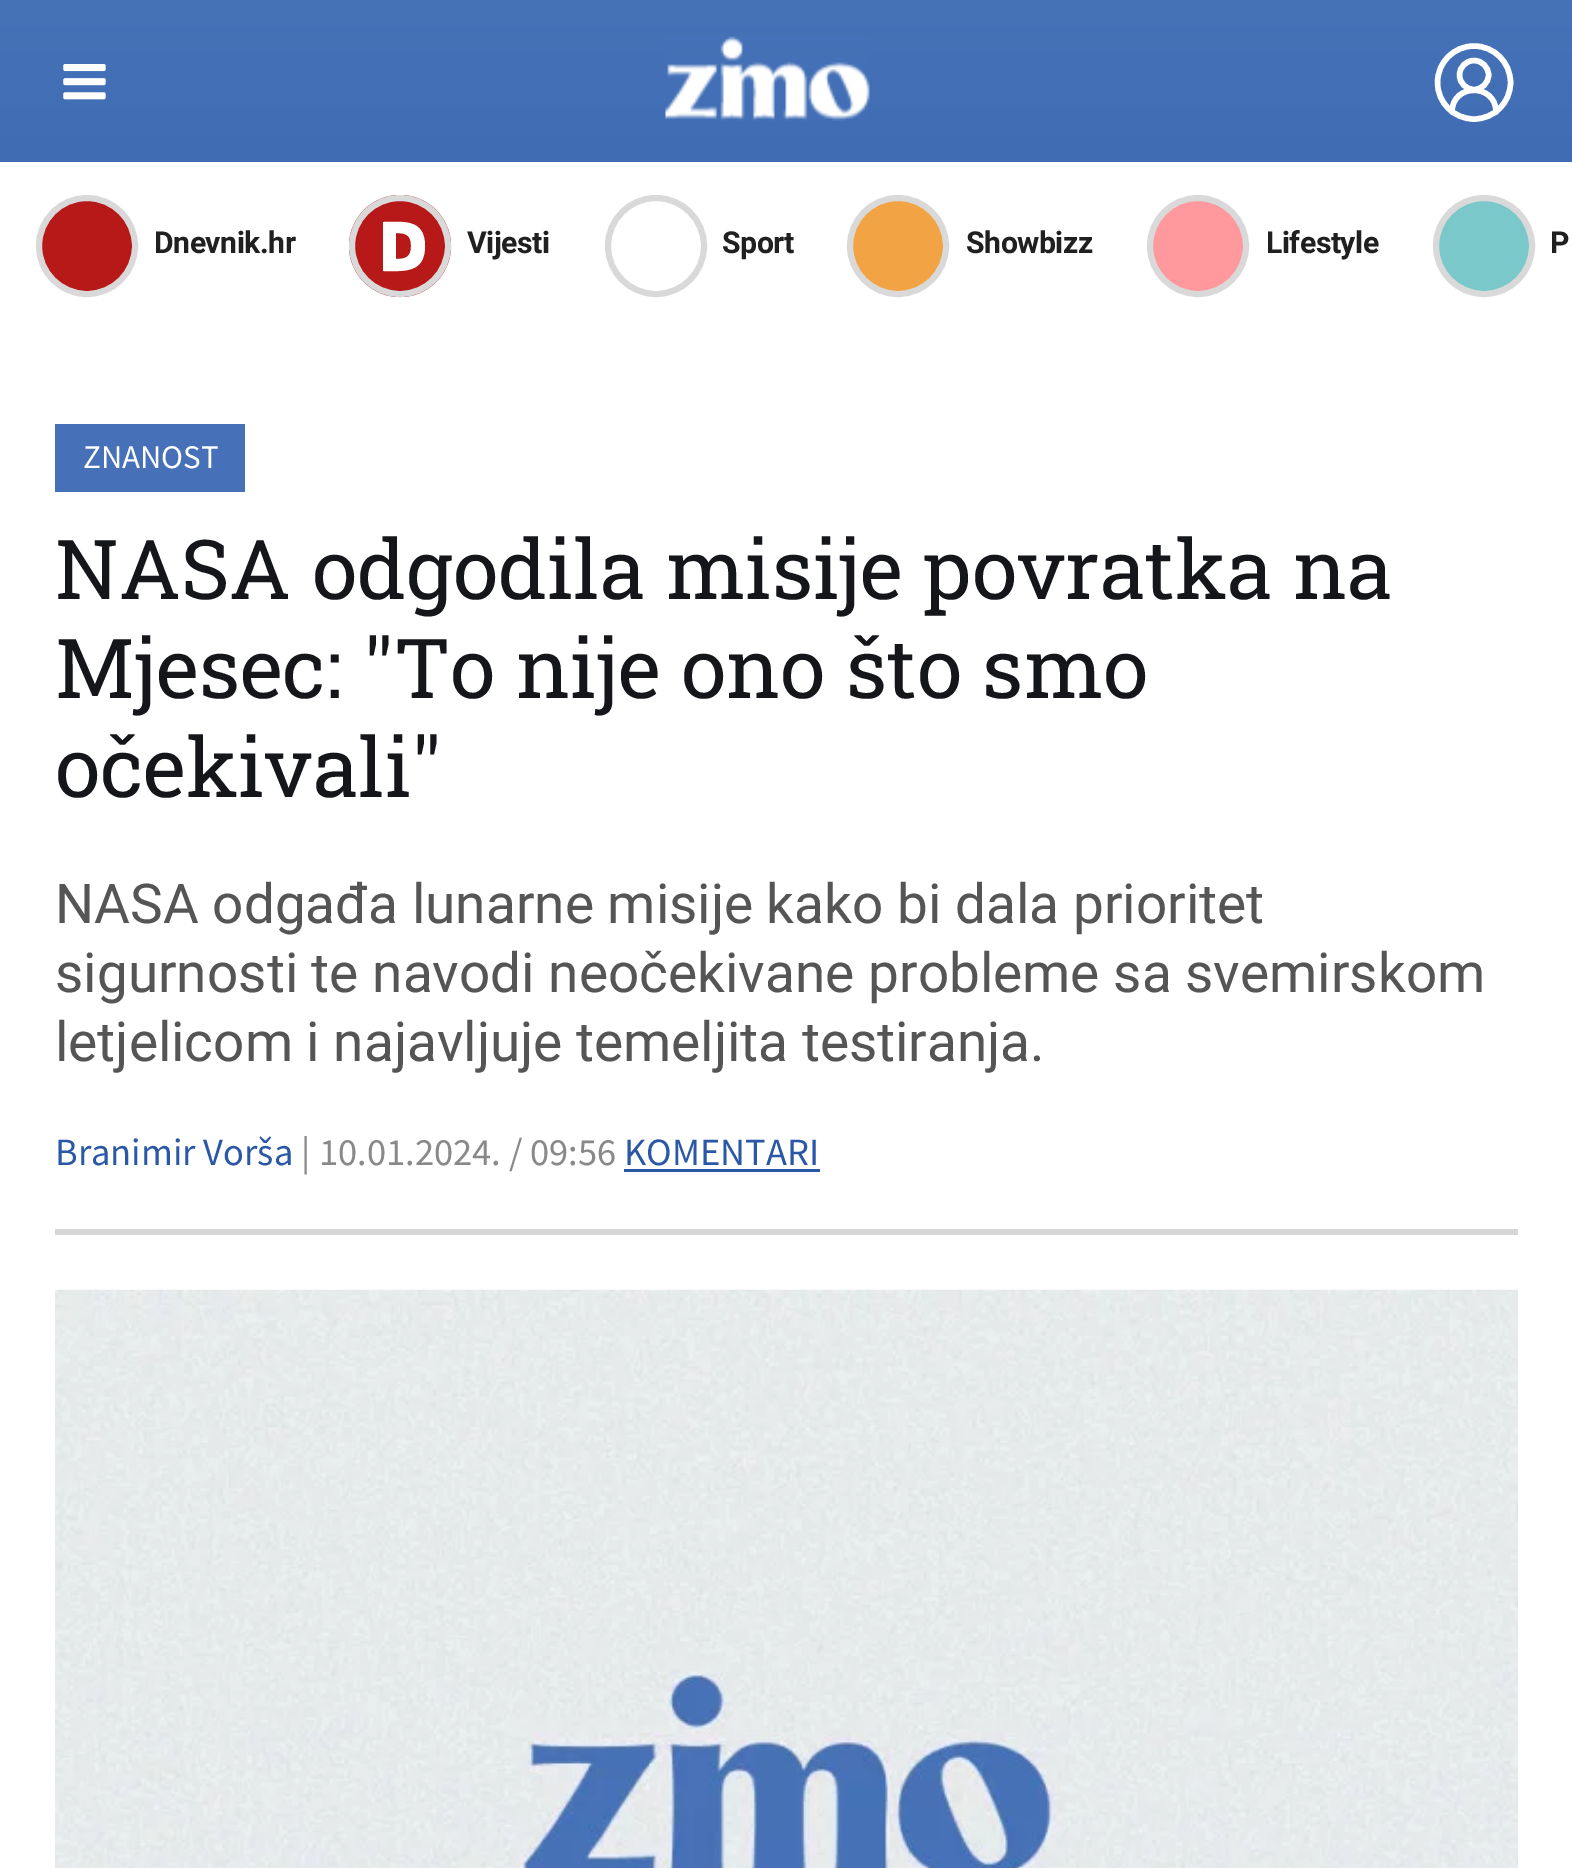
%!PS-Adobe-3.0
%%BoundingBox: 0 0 1572 1868
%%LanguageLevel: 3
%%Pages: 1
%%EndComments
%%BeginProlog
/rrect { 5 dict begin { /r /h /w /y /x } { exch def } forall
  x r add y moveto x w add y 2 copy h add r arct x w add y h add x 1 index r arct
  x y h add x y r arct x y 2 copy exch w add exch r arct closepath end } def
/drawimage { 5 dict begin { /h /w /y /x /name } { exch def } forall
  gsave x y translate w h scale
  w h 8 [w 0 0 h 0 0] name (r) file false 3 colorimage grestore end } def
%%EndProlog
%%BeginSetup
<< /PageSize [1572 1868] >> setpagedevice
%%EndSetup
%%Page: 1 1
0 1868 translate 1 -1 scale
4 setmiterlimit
1 setgray
0 0 1572 1868 rectfill
gsave newpath 0 0 moveto 1572 0 lineto 1572 162 lineto 0 162 lineto closepath clip newpath
<< /ShadingType 2 /ColorSpace /DeviceRGB /Coords [787 0 787 162] /Extend [true true] /Function << /FunctionType 2 /Domain [0 1] /C0 [0.275 0.447 0.722] /C1 [0.247 0.424 0.702] /N 1 >> >> shfill grestore
(images/1.raw) 63 64 43 36 drawimage
(images/2.raw) 665 36 205 85 drawimage
5.5 setlinewidth
1 setlinecap
1 setlinejoin
newpath 1496 112 moveto 1496 83 1452 83 1452 112 curveto stroke
0 setlinecap
0 setlinejoin
newpath 1474 75 14.5 0 360 arc closepath stroke
gsave
1430 39 110 110 55 rrect clip newpath
newpath 1474 82.5 36.5 0 360 arc closepath stroke
grestore
0.718 0.098 0.094 setrgbcolor
newpath 87 246 48 0 360 arc closepath gsave fill grestore
0.851 setgray
6 setlinewidth
stroke
0.718 0.098 0.094 setrgbcolor
newpath 400 246 51 0 360 arc closepath fill
1 setgray
newpath 425 246 moveto 425 218 402 222 383 222 curveto 383 271 lineto 403 271 425 274 425 246 curveto closepath 411 246 moveto 411 257 406 259 396 259 curveto 396 233 lineto 406 233 411 235 411 246 curveto closepath eofill
0.851 setgray
newpath 400 246 48 0 360 arc closepath stroke
newpath 656 246 48 0 360 arc closepath stroke
0.949 0.643 0.267 setrgbcolor
newpath 898 246 48 0 360 arc closepath gsave fill grestore
0.851 setgray
stroke
1 0.6 0.616 setrgbcolor
newpath 1198 246 48 0 360 arc closepath gsave fill grestore
0.851 setgray
stroke
0.482 0.784 0.792 setrgbcolor
newpath 1484 246 48 0 360 arc closepath gsave fill grestore
0.851 setgray
stroke
0.275 0.443 0.722 setrgbcolor
55 424 190 68 rectfill
0.843 setgray
55 1229 1463 6 rectfill
0.165 0.345 0.655 setrgbcolor
624 1169 196 3 rectfill
(images/3.raw) 55 1289 1463 579 drawimage
/Roboto-Bold [30.25 0 0 -30.25 0 0] selectfont
0.125 setgray
154 253 moveto -0.5 0 (Dnevnik.hr) ashow
467 253 moveto -0.5 0 (Vijesti) ashow
722 253 moveto -0.5 0 (Sport) ashow
966 253 moveto -0.5 0 (Showbizz) ashow
1266 253 moveto -0.5 0 (Lifestyle) ashow
1550 253 moveto -0.5 0 (P) ashow
/SourceSansPro-Regular [33 0 0 -33 0 0] selectfont
1 setgray
83 468 moveto (ZNANOST) show
/RobotoSlab-Regular [82.5 0 0 -82.5 0 0] selectfont
0.078 0.086 0.102 setrgbcolor
55 599 moveto (NASA odgodila misije povratka na) show
55 698 moveto (Mjesec: "To nije ono što smo) show
55 797 moveto (očekivali") show
/Roboto-Regular [55 0 0 -55 0 0] selectfont
0.333 setgray
55 923 moveto (NASA odgađa lunarne misije kako bi dala prioritet) show
55 992 moveto (sigurnosti te navodi neočekivane probleme sa svemirskom) show
55 1061 moveto (letjelicom i najavljuje temeljita testiranja.) show
/SourceSansPro-Regular [38.5 0 0 -38.5 0 0] selectfont
0.165 0.345 0.655 setrgbcolor
55 1165 moveto (Branimir Vorša) show
0.537 setgray
301 1165 moveto (|) show
319 1165 moveto (10.01.2024. / 09:56) show
0.165 0.345 0.655 setrgbcolor
624 1165 moveto (KOMENTARI) show
showpage
%%EOF
